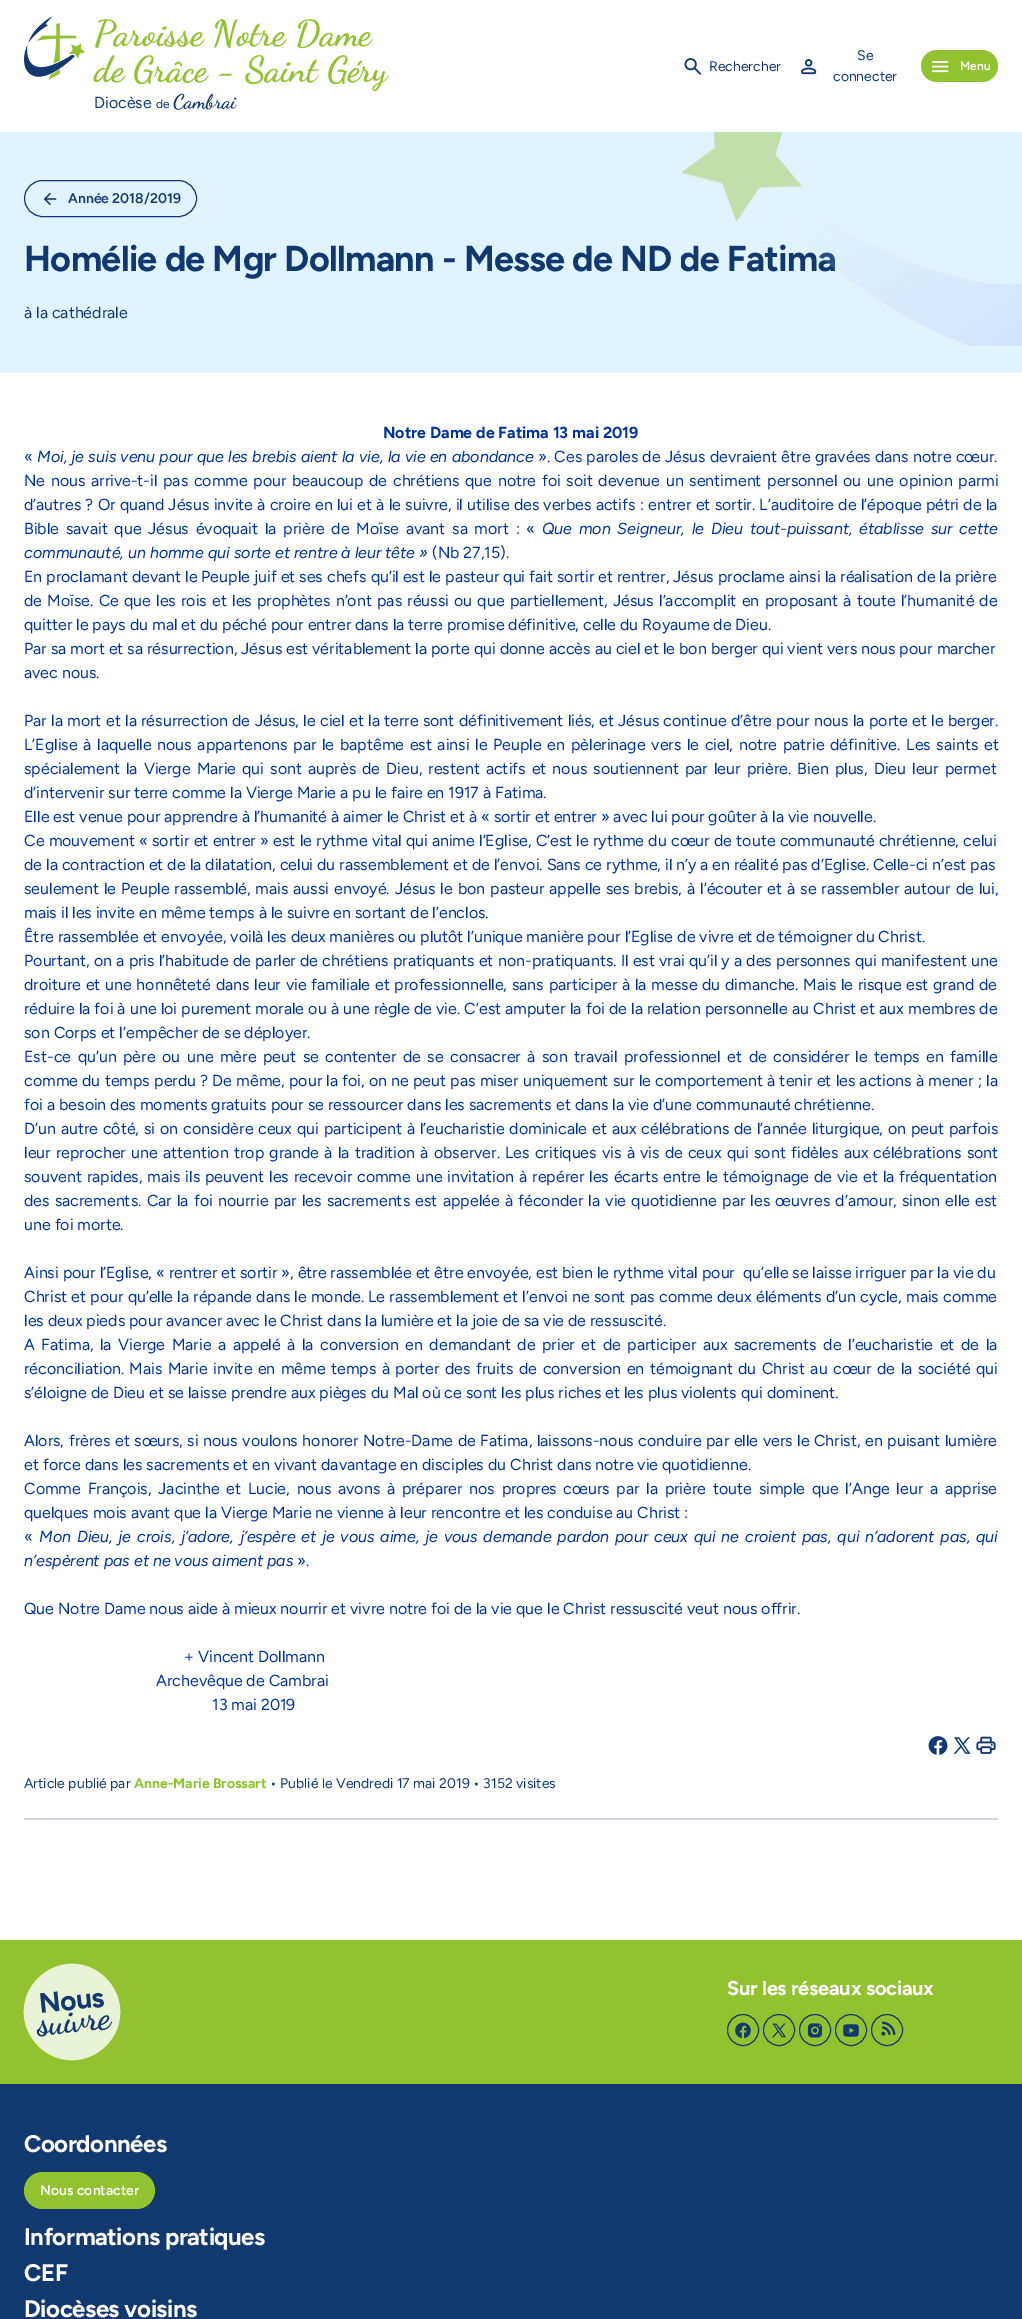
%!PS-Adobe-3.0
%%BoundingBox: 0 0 1022 2319
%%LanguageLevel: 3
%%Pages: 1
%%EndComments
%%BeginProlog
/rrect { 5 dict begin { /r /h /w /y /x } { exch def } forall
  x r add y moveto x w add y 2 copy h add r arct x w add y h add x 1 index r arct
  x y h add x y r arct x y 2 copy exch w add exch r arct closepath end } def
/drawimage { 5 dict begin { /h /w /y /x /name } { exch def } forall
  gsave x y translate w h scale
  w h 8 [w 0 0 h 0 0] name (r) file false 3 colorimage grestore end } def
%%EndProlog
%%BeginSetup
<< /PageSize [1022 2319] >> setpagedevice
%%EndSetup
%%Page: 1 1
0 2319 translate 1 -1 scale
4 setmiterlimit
1 setgray
0 0 1022 2319 rectfill
(images/1.raw) 24 16 62 64 drawimage
(images/2.raw) 684 58 17 17 drawimage
(images/3.raw) 801 59 16 16 drawimage
0.569 0.761 0.184 setrgbcolor
921 50 77 32 16 rrect fill
(images/4.raw) 931 61 18 12 drawimage
0.878 0.957 1 setrgbcolor
0 132 1022 241 rectfill
0.071 0.22 0.439 setrgbcolor
24.5 180.5 172 36 18 rrect stroke
(images/5.raw) 44 193 13 12 drawimage
(images/7.raw) 928 1736 20 19 drawimage
(images/8.raw) 953 1737 18 17 drawimage
(images/9.raw) 976 1736 20 18 drawimage
0.816 0.843 0.886 setrgbcolor
24 1818 974 2 rectfill
0.569 0.761 0.184 setrgbcolor
0 1940 1022 144 rectfill
0.071 0.22 0.439 setrgbcolor
newpath 743 2030 15.5 0 360 arc closepath stroke
(images/10.raw) 735 2022 16 17 drawimage
newpath 779 2030 15.5 0 360 arc closepath stroke
(images/11.raw) 772 2023 14 15 drawimage
newpath 815 2030 15.5 0 360 arc closepath stroke
(images/12.raw) 807 2023 16 15 drawimage
newpath 851 2030 15.5 0 360 arc closepath stroke
(images/13.raw) 843 2024 16 13 drawimage
newpath 887 2030 15.5 0 360 arc closepath stroke
(images/14.raw) 881 2021 15 15 drawimage
0.914 0.953 0.835 setrgbcolor
newpath 67 1964 moveto 93 1961 117 1981 120 2007 curveto 123 2033 103 2057 77 2060 curveto 51 2063 27 2043 24 2017 curveto 21 1991 41 1967 67 1964 curveto closepath fill
0.071 0.22 0.439 setrgbcolor
0 2084 1022 235 rectfill
0.569 0.761 0.184 setrgbcolor
24 2172 131 37 18.5 rrect fill
/DancingScript-Bold [36 0 0 -36 0 0] selectfont
94 45 moveto (Paroisse Notre Dame) show
94 81 moveto (de Grâce - Saint Géry) show
/Figtree-Regular [16 0 0 -16 0 0] selectfont
0.071 0.22 0.439 setrgbcolor
94 108 moveto (Diocèse) show
/Figtree-Regular [12 0 0 -12 0 0] selectfont
156 108 moveto (de) show
/DancingScript-Bold [20 0 0 -20 0 0] selectfont
173 108 moveto (Cambrai) show
/Figtree-Regular [14 0 0 -14 0 0] selectfont
709 71 moveto (Rechercher) show
857 60 moveto (Se) show
833 81 moveto (connecter) show
/Figtree-SemiBold [12 0 0 -12 0 0] selectfont
1 setgray
960 70 moveto (Menu) show
/Figtree-SemiBold [14 0 0 -14 0 0] selectfont
0.071 0.22 0.439 setrgbcolor
68 203 moveto (Année 2018/2019) show
/Figtree-Bold [36 0 0 -36 0 0] selectfont
24 271 moveto -0.7 0 (Homélie de Mgr Dollmann - Messe de ND de Fatima) ashow
/Figtree-Regular [16 0 0 -16 0 0] selectfont
24 318 moveto (à la cathédrale) show
(images/6.raw) 681 132 341 214 drawimage
/Figtree-Bold [16 0 0 -16 0 0] selectfont
0 0.2 0.6 setrgbcolor
383 438 moveto (Notre Dame de Fatima 13 mai 2019) show
/Figtree-Regular [16 0 0 -16 0 0] selectfont
24 462 moveto («) show
/Figtree-Italic [16 0 0 -16 0 0] selectfont
37 462 moveto 0.25 0 32 (Moi, je suis venu pour que les brebis aient la vie, la vie en abondance) widthshow
/Figtree-Regular [16 0 0 -16 0 0] selectfont
538 462 moveto 0.25 0 32 (». Ces paroles de Jésus devraient être gravées dans notre cœur.) widthshow
24 486 moveto 1.7 0 32 (Ne nous arrive-t-il pas comme pour beaucoup de chrétiens que notre foi soit devenue un sentiment personnel ou une opinion parmi) widthshow
24 510 moveto 0.3 0 32 (d’autres ? Or quand Jésus invite à croire en lui et à le suivre, il utilise des verbes actifs : entrer et sortir. L’auditoire de l’époque pétri de la) widthshow
24 534 moveto 2.8 0 32 (Bible savait que Jésus évoquait la prière de Moïse avant sa mort : «) widthshow
/Figtree-Italic [16 0 0 -16 0 0] selectfont
542 534 moveto 2.8 0 32 (Que mon Seigneur, le Dieu tout-puissant, établisse sur cette) widthshow
24 558 moveto (communauté, un homme qui sorte et rentre à leur tête ») show
/Figtree-Regular [16 0 0 -16 0 0] selectfont
432 558 moveto (\(Nb 27,15\).) show
24 582 moveto (En proclamant devant le Peuple juif et ses chefs qu’il est le pasteur qui fait sortir et rentrer, Jésus proclame ainsi la réalisation de la prière) show
24 606 moveto 1.25 0 32 (de Moïse. Ce que les rois et les prophètes n’ont pas réussi ou que partiellement, Jésus l’accomplit en proposant à toute l’humanité de) widthshow
24 630 moveto (quitter le pays du mal et du péché pour entrer dans la terre promise définitive, celle du Royaume de Dieu.) show
24 654 moveto (Par sa mort et sa résurrection, Jésus est véritablement la porte qui donne accès au ciel et le bon berger qui vient vers nous pour marcher) show
24 678 moveto (avec nous.) show
24 726 moveto 0.4 0 32 (Par la mort et la résurrection de Jésus, le ciel et la terre sont définitivement liés, et Jésus continue d’être pour nous la porte et le berger.) widthshow
24 750 moveto 1.75 0 32 (L’Eglise à laquelle nous appartenons par le baptême est ainsi le Peuple en pèlerinage vers le ciel, notre patrie définitive. Les saints et) widthshow
24 774 moveto 2.1 0 32 (spécialement la Vierge Marie qui sont auprès de Dieu, restent actifs et nous soutiennent par leur prière. Bien plus, Dieu leur permet) widthshow
24 798 moveto (d’intervenir sur terre comme la Vierge Marie a pu le faire en 1917 à Fatima.) show
24 822 moveto (Elle est venue pour apprendre à l’humanité à aimer le Christ et à « sortir et entrer » avec lui pour goûter à la vie nouvelle.) show
24 846 moveto 0.3 0 32 (Ce mouvement « sortir et entrer » est le rythme vital qui anime l’Eglise, C’est le rythme du cœur de toute communauté chrétienne, celui) widthshow
24 870 moveto (de la contraction et de la dilatation, celui du rassemblement et de l’envoi. Sans ce rythme, il n’y a en réalité pas d’Eglise. Celle-ci n’est pas) show
24 894 moveto 1 0 32 (seulement le Peuple rassemblé, mais aussi envoyé. Jésus le bon pasteur appelle ses brebis, à l’écouter et à se rassembler autour de lui,) widthshow
24 918 moveto (mais il les invite en même temps à le suivre en sortant de l’enclos.) show
24 942 moveto (Être rassemblée et envoyée, voilà les deux manières ou plutôt l’unique manière pour l’Eglise de vivre et de témoigner du Christ.) show
24 966 moveto 0.25 0 32 (Pourtant, on a pris l’habitude de parler de chrétiens pratiquants et non-pratiquants. Il est vrai qu’il y a des personnes qui manifestent une) widthshow
24 990 moveto 0.8 0 32 (droiture et une honnêteté dans leur vie familiale et professionnelle, sans participer à la messe du dimanche. Mais le risque est grand de) widthshow
24 1014 moveto 0.25 0 32 (réduire la foi à une loi purement morale ou à une règle de vie. C’est amputer la foi de la relation personnelle au Christ et aux membres de) widthshow
24 1038 moveto (son Corps et l’empêcher de se déployer.) show
24 1062 moveto 2.6 0 32 (Est-ce qu’un père ou une mère peut se contenter de se consacrer à son travail professionnel et de considérer le temps en famille) widthshow
24 1086 moveto 0.25 0 32 (comme du temps perdu ? De même, pour la foi, on ne peut pas miser uniquement sur le comportement à tenir et les actions à mener ; la) widthshow
24 1110 moveto (foi a besoin des moments gratuits pour se ressourcer dans les sacrements et dans la vie d’une communauté chrétienne.) show
24 1134 moveto 0.9 0 32 (D’un autre côté, si on considère ceux qui participent à l’eucharistie dominicale et aux célébrations de l’année liturgique, on peut parfois) widthshow
24 1158 moveto 1.25 0 32 (leur reprocher une attention trop grande à la tradition à observer. Les critiques vis à vis de ceux qui sont fidèles aux célébrations sont) widthshow
24 1182 moveto 1 0 32 (souvent rapides, mais ils peuvent les recevoir comme une invitation à repérer les écarts entre le témoignage de vie et la fréquentation) widthshow
24 1206 moveto 1.3 0 32 (des sacrements. Car la foi nourrie par les sacrements est appelée à féconder la vie quotidienne par les œuvres d’amour, sinon elle est) widthshow
24 1230 moveto (une foi morte.) show
24 1278 moveto (Ainsi pour l’Eglise, « rentrer et sortir », être rassemblée et être envoyée, est bien le rythme vital pour  qu’elle se laisse irriguer par la vie du) show
24 1302 moveto 0.25 0 32 (Christ et pour qu’elle la répande dans le monde. Le rassemblement et l’envoi ne sont pas comme deux éléments d’un cycle, mais comme) widthshow
24 1326 moveto (les deux pieds pour avancer avec le Christ dans la lumière et la joie de sa vie de ressuscité.) show
24 1350 moveto 2.6 0 32 (A Fatima, la Vierge Marie a appelé à la conversion en demandant de prier et de participer aux sacrements de l’eucharistie et de la) widthshow
24 1374 moveto 1.5 0 32 (réconciliation. Mais Marie invite en même temps à porter des fruits de conversion en témoignant du Christ au cœur de la société qui) widthshow
24 1398 moveto (s’éloigne de Dieu et se laisse prendre aux pièges du Mal où ce sont les plus riches et les plus violents qui dominent.) show
24 1446 moveto 0.6 0 32 (Alors, frères et sœurs, si nous voulons honorer Notre-Dame de Fatima, laissons-nous conduire par elle vers le Christ, en puisant lumière) widthshow
24 1470 moveto (et force dans les sacrements et en vivant davantage en disciples du Christ dans notre vie quotidienne.) show
24 1494 moveto 2.8 0 32 (Comme François, Jacinthe et Lucie, nous avons à préparer nos propres cœurs par la prière toute simple que l’Ange leur a apprise) widthshow
24 1518 moveto (quelques mois avant que la Vierge Marie ne vienne à leur rencontre et les conduise au Christ :) show
24 1542 moveto («) show
/Figtree-Italic [16 0 0 -16 0 0] selectfont
39 1542 moveto 1.8 0 32 (Mon Dieu, je crois, j’adore, j’espère et je vous aime, je vous demande pardon pour ceux qui ne croient pas, qui n’adorent pas, qui) widthshow
24 1566 moveto (n’espèrent pas et ne vous aiment pas) show
/Figtree-Regular [16 0 0 -16 0 0] selectfont
297 1566 moveto (».) show
24 1614 moveto (Que Notre Dame nous aide à mieux nourrir et vivre notre foi de la vie que le Christ ressuscité veut nous offrir.) show
184 1662 moveto (+ Vincent Dollmann) show
156 1686 moveto (Archevêque de Cambrai) show
212 1710 moveto (13 mai 2019) show
/Figtree-Regular [14 0 0 -14 0 0] selectfont
0.071 0.22 0.439 setrgbcolor
24 1788 moveto (Article publié par) show
/Figtree-Bold [14 0 0 -14 0 0] selectfont
0.569 0.761 0.184 setrgbcolor
134 1788 moveto (Anne-Marie Brossart) show
/Figtree-Regular [14 0 0 -14 0 0] selectfont
0.071 0.22 0.439 setrgbcolor
270 1788 moveto (• Publié le Vendredi 17 mai 2019 • 3152 visites) show
/Figtree-Bold [20 0 0 -20 0 0] selectfont
1 setgray
727 1995 moveto -0.25 0 (Sur les réseaux sociaux) ashow
/Figtree-Bold [28 0 0 -28 0 0] selectfont
0.071 0.22 0.439 setrgbcolor
gsave 40 2013 translate -6 rotate 0 0 moveto -0.5 0 (Nous) ashow grestore
/DancingScript-Bold [36 0 0 -36 0 0] selectfont
gsave 38 2035 translate -6 rotate 0 0 moveto -0.7 0 (suivre) ashow grestore
/Figtree-Bold [24 0 0 -24 0 0] selectfont
1 setgray
24 2152 moveto -0.5 0 (Coordonnées) ashow
/Figtree-SemiBold [14 0 0 -14 0 0] selectfont
40 2195 moveto (Nous contacter) show
/Figtree-Bold [24 0 0 -24 0 0] selectfont
24 2245 moveto -0.5 0 (Informations pratiques) ashow
24 2281 moveto -0.5 0 (CEF) ashow
24 2317 moveto -0.5 0 (Diocèses voisins) ashow
showpage
%%EOF
